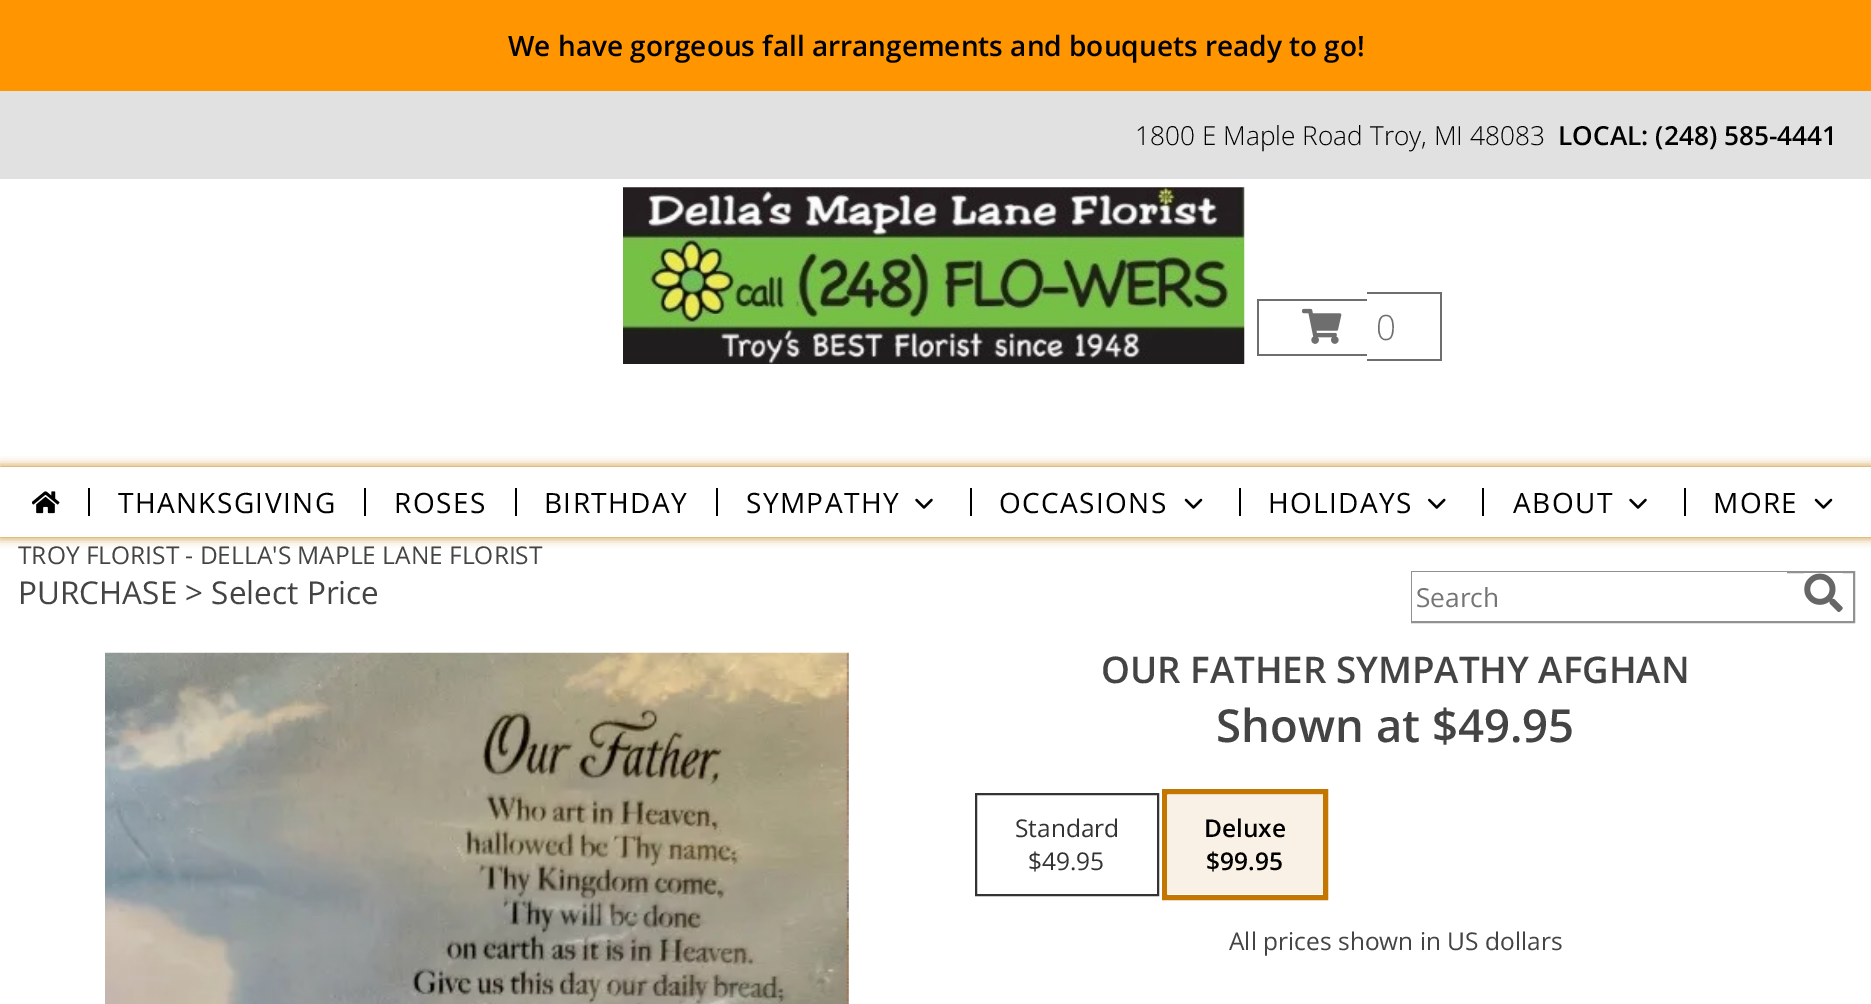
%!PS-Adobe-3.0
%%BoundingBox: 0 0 1871 1004
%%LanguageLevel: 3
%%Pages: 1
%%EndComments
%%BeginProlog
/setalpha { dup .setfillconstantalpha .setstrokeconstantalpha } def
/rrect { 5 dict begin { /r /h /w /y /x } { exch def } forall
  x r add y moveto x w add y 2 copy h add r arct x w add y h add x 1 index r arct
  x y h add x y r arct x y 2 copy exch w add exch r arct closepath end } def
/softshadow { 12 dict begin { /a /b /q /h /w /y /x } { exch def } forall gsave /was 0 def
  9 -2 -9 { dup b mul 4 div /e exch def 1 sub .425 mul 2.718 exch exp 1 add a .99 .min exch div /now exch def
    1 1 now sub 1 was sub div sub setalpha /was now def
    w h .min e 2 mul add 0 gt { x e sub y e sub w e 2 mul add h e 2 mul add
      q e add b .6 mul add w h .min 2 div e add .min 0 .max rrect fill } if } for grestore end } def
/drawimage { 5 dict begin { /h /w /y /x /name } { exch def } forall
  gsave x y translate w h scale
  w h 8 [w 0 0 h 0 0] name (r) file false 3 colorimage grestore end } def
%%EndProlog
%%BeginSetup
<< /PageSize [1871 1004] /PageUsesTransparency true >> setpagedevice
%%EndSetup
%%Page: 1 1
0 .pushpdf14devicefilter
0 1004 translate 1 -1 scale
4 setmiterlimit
1 setgray
0 0 1871 1004 rectfill
1 0.584 0.004 setrgbcolor
0 0 1871 91 rectfill
0.882 setgray
0 91 1871 88 rectfill
(images/1.raw) 623 187 622 177 drawimage
0.431 setgray
1257 299 110 2 rectfill
1257 354 110 2 rectfill
1257 299 2 56 rectfill
1367 292 75 2 rectfill
1367 359 9 2 rectfill
1440 292 2 69 rectfill
1376 359 66 2 rectfill
(images/2.raw) 1302 308 40 36 drawimage
0.765 0.463 0 setrgbcolor
0 467 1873 70 0 5 1 softshadow
1 setgray
0 467 1871 70 rectfill
(images/3.raw) 32 491 28 23 drawimage
0 setgray
88 488 2 28 rectfill
364 488 2 28 rectfill
515 488 2 28 rectfill
716 488 2 28 rectfill
(images/4.raw) 915 498 18 11 drawimage
970 488 2 28 rectfill
(images/5.raw) 1184 498 19 11 drawimage
1239 488 2 28 rectfill
(images/6.raw) 1428 498 18 11 drawimage
1482 488 2 28 rectfill
(images/4.raw) 1629 498 18 11 drawimage
1684 488 2 28 rectfill
(images/5.raw) 1814 498 19 11 drawimage
0.569 setgray
2 setlinewidth
1412 572 442 50 rectstroke
1 setgray
1412 572 375 49 rectfill
(images/7.raw) 1804 573 39 39 drawimage
(images/8.raw) 105 652 744 352 drawimage
0.2 setgray
976 794 182 101 rectstroke
0.765 0.463 0 setrgbcolor
5 setlinewidth
1164.5 791.5 161 106 rectstroke
0.976 0.945 0.898 setrgbcolor
1167 795 156 99 rectfill
/OpenSans-SemiBold [28 0 0 -28 0 0] selectfont
0 setgray
508 56 moveto (We have gorgeous fall arrangements and bouquets ready to go!) show
/OpenSans-Light [26.25 0 0 -26.25 0 0] selectfont
1135 145 moveto (1800 E Maple Road Troy, MI 48083) show
/OpenSans-SemiBold [26.25 0 0 -26.25 0 0] selectfont
1558 145 moveto (LOCAL: \(248\) 585-4441) show
/OpenSans-Light [35 0 0 -35 0 0] selectfont
0.431 setgray
1376 340 moveto (0) show
/OpenSans-Regular [28 0 0 -28 0 0] selectfont
0 setgray
118 513 moveto 1.4 0 (THANKSGIVING) ashow
394 513 moveto 1.4 0 (ROSES) ashow
544 513 moveto 1.4 0 (BIRTHDAY) ashow
746 513 moveto 1.4 0 (SYMPATHY) ashow
999 513 moveto 1.4 0 (OCCASIONS) ashow
1268 513 moveto 1.4 0 (HOLIDAYS) ashow
1513 513 moveto 1.4 0 (ABOUT) ashow
1713 513 moveto 1.4 0 (MORE) ashow
/OpenSans-Regular [24.5 0 0 -24.5 0 0] selectfont
0.267 setgray
18 564 moveto (TROY FLORIST - DELLA'S MAPLE LANE FLORIST) show
/OpenSans-Regular [31.5 0 0 -31.5 0 0] selectfont
18 604 moveto (PURCHASE > Select Price) show
/OpenSans-Regular [26.25 0 0 -26.25 0 0] selectfont
0.459 setgray
1416 607 moveto (Search) show
/OpenSans-SemiBold [36.75 0 0 -36.75 0 0] selectfont
0.267 setgray
1101 683 moveto (OUR FATHER SYMPATHY AFGHAN) show
/OpenSans-SemiBold [45.5 0 0 -45.5 0 0] selectfont
1216 742 moveto (Shown at $49.95) show
/OpenSans-Regular [24.5 0 0 -24.5 0 0] selectfont
0.2 setgray
1015 837 moveto (Standard) show
1028 870 moveto ($49.95) show
/OpenSans-SemiBold [24.5 0 0 -24.5 0 0] selectfont
0 setgray
1204 837 moveto (Deluxe) show
1206 870 moveto ($99.95) show
/OpenSans-Regular [24.5 0 0 -24.5 0 0] selectfont
0.267 setgray
1229 950 moveto (All prices shown in US dollars) show
.poppdf14devicefilter showpage
%%EOF
